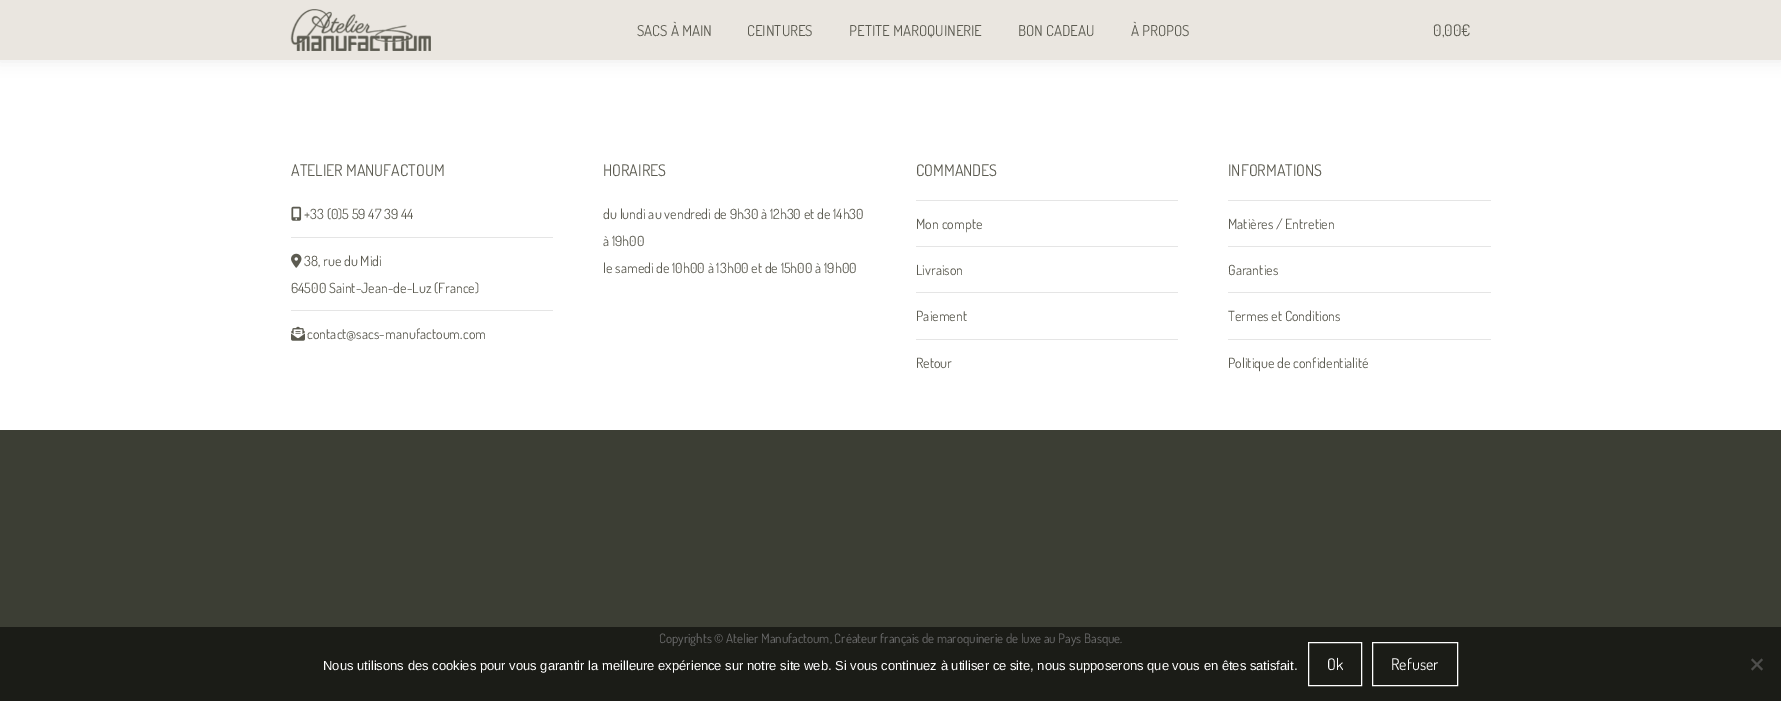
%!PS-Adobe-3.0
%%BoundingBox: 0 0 1781 701
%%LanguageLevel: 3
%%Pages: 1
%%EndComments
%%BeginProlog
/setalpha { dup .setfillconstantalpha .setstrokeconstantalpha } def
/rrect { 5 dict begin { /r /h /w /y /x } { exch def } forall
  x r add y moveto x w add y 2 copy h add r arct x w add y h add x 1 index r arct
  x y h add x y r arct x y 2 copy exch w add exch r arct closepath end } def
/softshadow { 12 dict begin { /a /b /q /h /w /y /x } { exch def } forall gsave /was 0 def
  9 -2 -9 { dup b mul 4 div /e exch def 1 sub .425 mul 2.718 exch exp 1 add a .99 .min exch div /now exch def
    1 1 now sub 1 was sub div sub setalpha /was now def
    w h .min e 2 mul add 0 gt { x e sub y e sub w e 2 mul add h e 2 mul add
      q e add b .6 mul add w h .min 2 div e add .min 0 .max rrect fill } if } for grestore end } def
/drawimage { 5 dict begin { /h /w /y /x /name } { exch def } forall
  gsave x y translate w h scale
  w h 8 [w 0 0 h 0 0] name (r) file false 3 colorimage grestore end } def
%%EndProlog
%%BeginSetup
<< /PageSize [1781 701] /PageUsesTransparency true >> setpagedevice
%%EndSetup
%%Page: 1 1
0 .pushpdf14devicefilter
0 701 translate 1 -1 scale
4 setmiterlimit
1 setgray
0 0 1781 701 rectfill
0 setgray
-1 -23 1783 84 0 7.5 0.07 softshadow
0.918 0.902 0.878 setrgbcolor
0 0 1781 60 rectfill
(images/1.raw) 290 9 141 42 drawimage
(images/2.raw) 291 206 11 15 drawimage
0.898 setgray
291 237 262 1 rectfill
(images/3.raw) 291 253 11 15 drawimage
291 310 262 1 rectfill
(images/4.raw) 291 326 14 15 drawimage
916 200 262 1 rectfill
916 246 262 1 rectfill
916 292 262 1 rectfill
916 339 262 1 rectfill
1228 200 263 1 rectfill
1228 246 263 1 rectfill
1228 292 263 1 rectfill
1228 339 263 1 rectfill
0.235 0.243 0.204 setrgbcolor
0 430 1781 271 rectfill
/Dosis-Regular [15 0 0 -15 0 0] selectfont
0.361 0.357 0.318 setrgbcolor
637 36 moveto (SACS À MAIN) show
747 36 moveto (CEINTURES) show
849 36 moveto (PETITE MAROQUINERIE) show
1018 36 moveto (BON CADEAU) show
1131 36 moveto (À PROPOS) show
/Dosis-Regular [16 0 0 -16 0 0] selectfont
1433 36 moveto (0,00€) show
291 176 moveto (ATELIER MANUFACTOUM) show
/Dosis-Regular [14 0 0 -14 0 0] selectfont
304 219 moveto (+33 \(0\)5 59 47 39 44) show
304 266 moveto (38, rue du Midi) show
291 293 moveto (64500 Saint-Jean-de-Luz \(France\)) show
307 339 moveto (contact@sacs-manufactoum.com) show
/Dosis-Regular [16 0 0 -16 0 0] selectfont
603 176 moveto (HORAIRES) show
/Dosis-Regular [14 0 0 -14 0 0] selectfont
603 219 moveto (du lundi au vendredi de 9h30 à 12h30 et de 14h30) show
603 246 moveto (à 19h00) show
603 273 moveto (le samedi de 10h00 à 13h00 et de 15h00 à 19h00) show
/Dosis-Regular [16 0 0 -16 0 0] selectfont
916 176 moveto (COMMANDES) show
/Dosis-Regular [14 0 0 -14 0 0] selectfont
916 229 moveto (Mon compte) show
916 275 moveto (Livraison) show
916 321 moveto (Paiement) show
916 368 moveto (Retour) show
/Dosis-Regular [16 0 0 -16 0 0] selectfont
1228 176 moveto (INFORMATIONS) show
/Dosis-Regular [14 0 0 -14 0 0] selectfont
1228 229 moveto (Matières / Entretien) show
1228 275 moveto (Garanties) show
1228 321 moveto (Termes et Conditions) show
1228 368 moveto (Politique de confidentialité) show
/Dosis-Regular [13 0 0 -13 0 0] selectfont
0.933 setgray
659 643 moveto (Copyrights © Atelier Manufactoum, Créateur français de maroquinerie de luxe au Pays Basque.) show
0.55 setalpha
0 setgray
0 627 1781 74 rectfill
/LiberationSans-Regular [13 0 0 -13 0 0] selectfont
1 setalpha
1 setgray
323 670 moveto (Nous utilisons des cookies pour vous garantir la meilleure expérience sur notre site web. Si vous continuez à utiliser ce site, nous supposerons que vous en êtes satisfait.) show
1308.5 642.5 53 43 rectstroke
/Dosis-Regular [16 0 0 -16 0 0] selectfont
1327 670 moveto (Ok) show
1372.5 642.5 85 43 rectstroke
1391 670 moveto (Refuser) show
0.306 0.306 0.298 setrgbcolor
newpath 1761.5 658.5 moveto 1763 660 lineto 1752.5 670.5 lineto 1751 669 lineto closepath fill
newpath 1751 660 moveto 1752.5 658.5 lineto 1763 669 lineto 1761.5 670.5 lineto closepath fill
.poppdf14devicefilter showpage
%%EOF
